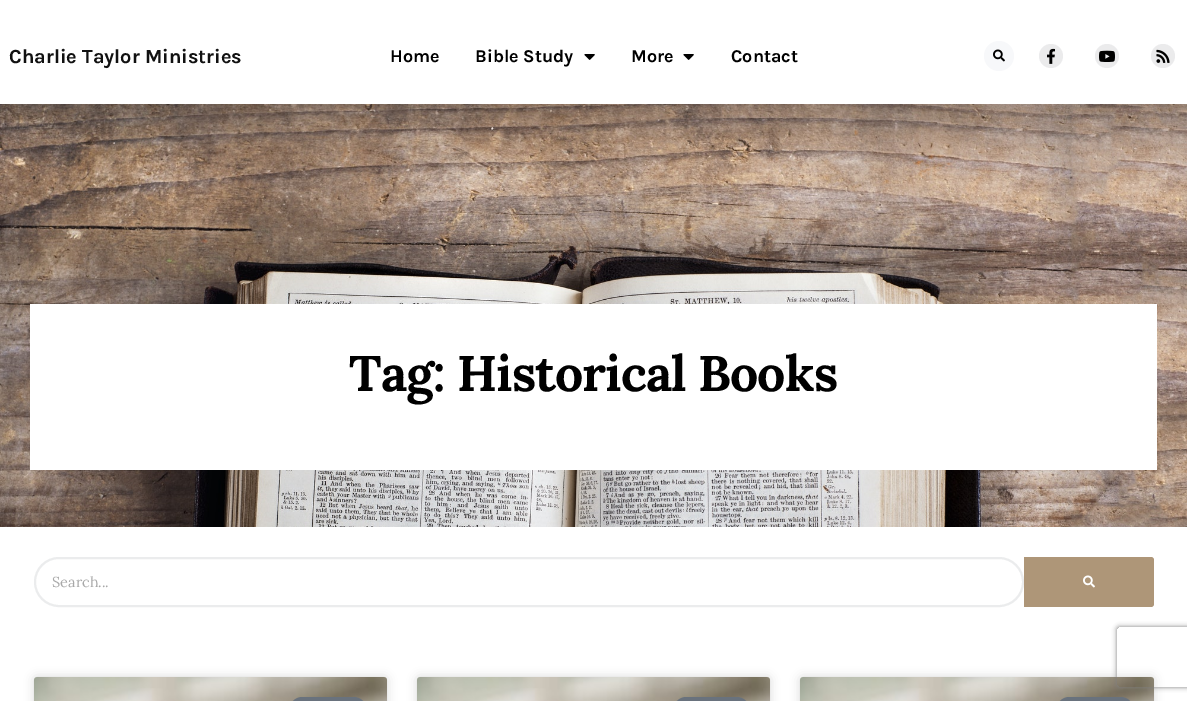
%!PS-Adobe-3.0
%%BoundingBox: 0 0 1187 701
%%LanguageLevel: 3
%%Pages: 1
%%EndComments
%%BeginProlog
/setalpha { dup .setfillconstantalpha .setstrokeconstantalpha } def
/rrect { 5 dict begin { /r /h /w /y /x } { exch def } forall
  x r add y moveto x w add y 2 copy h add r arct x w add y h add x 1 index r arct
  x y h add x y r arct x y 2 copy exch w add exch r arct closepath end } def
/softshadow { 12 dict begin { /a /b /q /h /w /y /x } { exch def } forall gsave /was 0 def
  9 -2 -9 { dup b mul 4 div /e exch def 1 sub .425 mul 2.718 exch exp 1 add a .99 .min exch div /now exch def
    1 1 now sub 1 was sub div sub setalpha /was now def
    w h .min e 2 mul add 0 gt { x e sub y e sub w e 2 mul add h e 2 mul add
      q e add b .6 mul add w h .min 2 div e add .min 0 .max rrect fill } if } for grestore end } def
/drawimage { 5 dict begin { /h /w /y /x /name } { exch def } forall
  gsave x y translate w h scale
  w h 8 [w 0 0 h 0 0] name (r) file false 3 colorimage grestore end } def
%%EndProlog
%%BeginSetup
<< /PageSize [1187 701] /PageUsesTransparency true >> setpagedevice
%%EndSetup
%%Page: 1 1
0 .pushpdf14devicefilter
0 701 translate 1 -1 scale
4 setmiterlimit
1 setgray
0 0 1187 701 rectfill
(images/1.raw) 584 54 11 6 drawimage
(images/1.raw) 683 54 11 6 drawimage
0.969 0.973 0.98 setrgbcolor
newpath 999 56 15 0 360 arc closepath fill
(images/2.raw) 993 49 12 13 drawimage
0.922 0.922 0.925 setrgbcolor
newpath 1051 56 12 0 360 arc closepath fill
(images/3.raw) 1047 48 8 16 drawimage
newpath 1107 56 12 0 360 arc closepath fill
(images/4.raw) 1099 50 16 12 drawimage
newpath 1163 56 12 0 360 arc closepath fill
(images/5.raw) 1156 49 14 14 drawimage
(images/6.raw) 0 104 1187 423 drawimage
1 setgray
30 304 1127 166 rectfill
0.922 0.925 0.929 setrgbcolor
2 setlinewidth
35 558 988 48 24 rrect stroke
0.682 0.588 0.471 setrgbcolor
newpath 1024 557 moveto 1151 557 lineto 1152.5 557 1154 558.5 1154 560 curveto 1154 604 lineto 1154 605.5 1152.5 607 1151 607 curveto 1024 607 lineto closepath fill
(images/7.raw) 1083 575 12 13 drawimage
0 setgray
34 677 353 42 3 5 0.15 softshadow
(images/8.raw) 34 677 353 24 drawimage
0.412 0.447 0.49 setrgbcolor
289 697 78 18 13.5 rrect fill
0 setgray
417 677 353 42 3 5 0.15 softshadow
(images/8.raw) 417 677 353 24 drawimage
0.412 0.447 0.49 setrgbcolor
673 697 77 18 13.5 rrect fill
0 setgray
800 677 354 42 3 5 0.15 softshadow
(images/9.raw) 800 677 354 24 drawimage
0.412 0.447 0.49 setrgbcolor
1056 697 78 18 13.5 rrect fill
gsave
newpath 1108 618 moveto 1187 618 lineto 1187 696 lineto 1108 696 lineto closepath 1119 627 moveto 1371 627 lineto 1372 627 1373 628 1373 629 curveto 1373 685 lineto 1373 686 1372 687 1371 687 curveto 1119 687 lineto 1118 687 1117 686 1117 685 curveto 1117 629 lineto 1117 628 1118 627 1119 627 curveto closepath eoclip newpath
0.502 setgray
1117 627 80 60 2 2.5 1 softshadow
grestore
/Karla-Bold [20 0 0 -20 0 0] selectfont
0.067 setgray
9 63 moveto (Charlie Taylor Ministries) show
/Karla-Bold [18 0 0 -18 0 0] selectfont
0 setgray
390 62 moveto (Home) show
475 62 moveto (Bible Study) show
631 62 moveto (More) show
731 62 moveto (Contact) show
/Lora-Bold [50 0 0 -50 0 0] selectfont
349 391 moveto -0.9 0 (Tag: Historical Books) ashow
/Lora-Regular [14.5 0 0 -14.5 0 0] selectfont
0.659 setgray
52 587 moveto (Search...) show
.poppdf14devicefilter showpage
%%EOF
